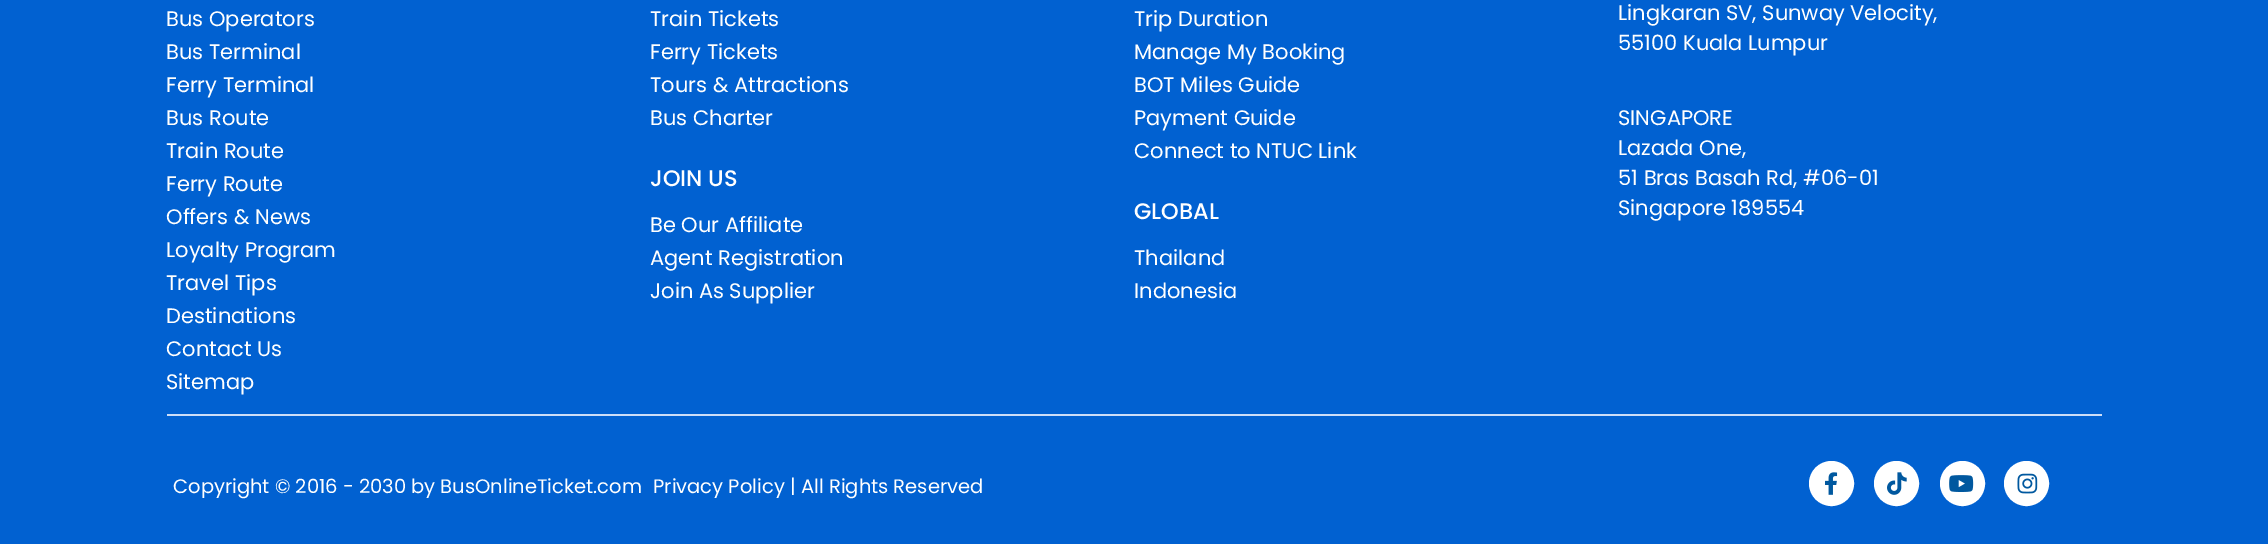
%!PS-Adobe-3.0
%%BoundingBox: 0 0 2268 544
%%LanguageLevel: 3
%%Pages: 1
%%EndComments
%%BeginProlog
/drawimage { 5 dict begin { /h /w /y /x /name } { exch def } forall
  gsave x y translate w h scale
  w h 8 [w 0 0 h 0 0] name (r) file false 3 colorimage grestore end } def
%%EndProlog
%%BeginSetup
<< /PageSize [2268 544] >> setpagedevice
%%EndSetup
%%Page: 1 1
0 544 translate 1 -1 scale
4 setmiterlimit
0.004 0.38 0.82 setrgbcolor
0 0 2268 544 rectfill
0.804 0.871 0.973 setrgbcolor
167 414 1935 2 rectfill
1 setgray
newpath 1831.5 483.5 21 0 360 arc closepath gsave fill grestore
3 setlinewidth
stroke
(images/1.raw) 1825 472 13 23 drawimage
newpath 1896.5 483.5 21 0 360 arc closepath gsave fill grestore
stroke
(images/2.raw) 1887 472 20 23 drawimage
newpath 1962.5 483.5 21 0 360 arc closepath gsave fill grestore
stroke
(images/3.raw) 1949 475 25 17 drawimage
newpath 2026.5 483.5 21 0 360 arc closepath gsave fill grestore
stroke
(images/4.raw) 2017 473 21 21 drawimage
/Poppins-Regular [21 0 0 -21 0 0] selectfont
166 26 moveto (Bus Operators) show
166 59 moveto (Bus Terminal) show
166 92 moveto (Ferry Terminal) show
166 125 moveto (Bus Route) show
166 158 moveto (Train Route) show
166 191 moveto (Ferry Route) show
166 224 moveto (Offers & News) show
166 257 moveto (Loyalty Program) show
166 290 moveto (Travel Tips) show
166 323 moveto (Destinations) show
166 356 moveto (Contact Us) show
166 389 moveto (Sitemap) show
650 26 moveto (Train Tickets) show
650 59 moveto (Ferry Tickets) show
650 92 moveto (Tours & Attractions) show
650 125 moveto (Bus Charter) show
/Poppins-Medium [22.5 0 0 -22.5 0 0] selectfont
650 186 moveto (JOIN US) show
/Poppins-Regular [21 0 0 -21 0 0] selectfont
650 232 moveto (Be Our Affiliate) show
650 265 moveto (Agent Registration) show
650 298 moveto (Join As Supplier) show
1134 26 moveto (Trip Duration) show
1134 59 moveto (Manage My Booking) show
1134 92 moveto (BOT Miles Guide) show
1134 125 moveto (Payment Guide) show
1134 158 moveto (Connect to NTUC Link) show
/Poppins-Medium [22.5 0 0 -22.5 0 0] selectfont
1134 219 moveto (GLOBAL) show
/Poppins-Regular [21 0 0 -21 0 0] selectfont
1134 265 moveto (Thailand) show
1134 298 moveto (Indonesia) show
1618 20 moveto (Lingkaran SV, Sunway Velocity,) show
1618 50 moveto (55100 Kuala Lumpur) show
1618 125 moveto (SINGAPORE) show
1618 155 moveto (Lazada One,) show
1618 185 moveto (51 Bras Basah Rd, #06-01) show
1618 215 moveto (Singapore 189554) show
/Poppins-Regular [19.5 0 0 -19.5 0 0] selectfont
173 493 moveto (Copyright © 2016 - 2030 by BusOnlineTicket.com) show
653 493 moveto (Privacy Policy | All Rights Reserved) show
showpage
%%EOF
